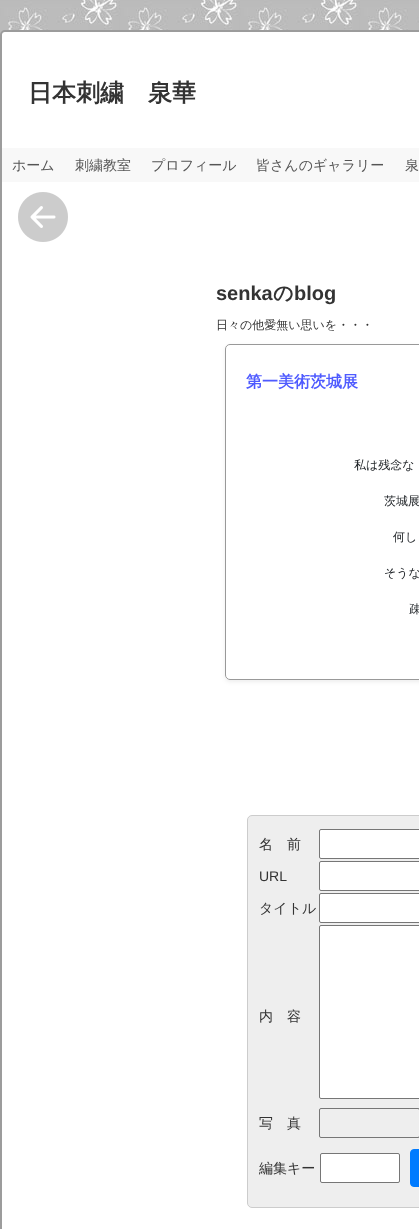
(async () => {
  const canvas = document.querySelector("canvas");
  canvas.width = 419;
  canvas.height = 1229;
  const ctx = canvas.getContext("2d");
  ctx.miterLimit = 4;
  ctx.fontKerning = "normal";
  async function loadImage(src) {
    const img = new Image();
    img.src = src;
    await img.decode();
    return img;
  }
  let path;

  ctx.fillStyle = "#ffffff";
  ctx.fillRect(0, 0, 419, 1229);
  ctx.drawImage(await loadImage("img/1.png"), 0, 0, 419, 35);
  ctx.beginPath();
  ctx.roundRect(1, 31, 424, 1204, 4);
  ctx.fill();
  ctx.strokeStyle = "#9c9c9c";
  ctx.lineWidth = 2;
  ctx.stroke();
  path = new Path2D("M7 32H419C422 32 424 34 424 37V182H2V37C2 34 4 32 7 32Z");
  ctx.fill(path);
  ctx.fillStyle = "#f8f8f8";
  ctx.fillRect(2, 148, 417, 34);
  ctx.drawImage(await loadImage("img/2.png"), 18, 192, 50, 50);
  ctx.save();
  path = new Path2D("M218 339H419V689H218ZM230 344H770C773 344 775 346 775 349V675C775 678 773 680 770 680H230C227 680 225 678 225 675V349C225 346 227 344 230 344Z");
  ctx.clip(path, "evenodd");
  ctx.fillStyle = "rgba(0, 0, 0, 0.07)";
  ctx.filter = "blur(2px)";
  ctx.beginPath();
  ctx.roundRect(225, 346, 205, 336, 5);
  ctx.fill();
  ctx.filter = "none";
  ctx.restore();
  ctx.beginPath();
  ctx.roundRect(225.5, 344.5, 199, 335, 4.5);
  ctx.strokeStyle = "#999999";
  ctx.lineWidth = 1;
  ctx.stroke();
  ctx.fillStyle = "#eeeeee";
  ctx.beginPath();
  ctx.roundRect(247.5, 815.5, 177, 392, 4.5);
  ctx.fill();
  ctx.strokeStyle = "#cccccc";
  ctx.stroke();
  ctx.fillStyle = "#ffffff";
  ctx.beginPath();
  ctx.roundRect(319.5, 829.5, 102, 29, 1.5);
  ctx.fill();
  ctx.strokeStyle = "#767676";
  ctx.stroke();
  ctx.beginPath();
  ctx.roundRect(319.5, 861.5, 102, 29, 1.5);
  ctx.fill();
  ctx.stroke();
  ctx.beginPath();
  ctx.roundRect(319.5, 893.5, 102, 29, 1.5);
  ctx.fill();
  ctx.stroke();
  ctx.beginPath();
  ctx.roundRect(319.5, 925.5, 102, 173, 1.5);
  ctx.fill();
  ctx.stroke();
  ctx.beginPath();
  ctx.roundRect(319.5, 1108.5, 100, 29, 1.5);
  ctx.stroke();
  ctx.beginPath();
  ctx.roundRect(320.5, 1153.5, 79, 29, 1.5);
  ctx.fill();
  ctx.stroke();
  ctx.fillStyle = "#007bff";
  ctx.beginPath();
  ctx.roundRect(410.5, 1149.5, 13, 37, 3.5);
  ctx.fill();
  ctx.strokeStyle = "#007bff";
  ctx.stroke();
  ctx.font = "bold 24px WenQuanYi Zen Hei";
  ctx.fillStyle = "#333333";
  ctx.fillText("日本刺繍　泉華", 28, 101);
  ctx.font = "500 14px WenQuanYi Zen Hei";
  ctx.fillStyle = "#555555";
  for (const [text, x, y] of [
    ["ホーム", 12, 170],
    ["刺繍教室", 75, 170],
    ["プロフィール", 151, 170],
    ["皆さんのギャラリー", 256, 170],
    ["泉", 405, 170],
  ]) {
    ctx.fillText(text, x, y);
  }
  ctx.font = "bold 20px Liberation Sans";
  ctx.fillStyle = "#333333";
  ctx.fillText("senka", 216, 300);
  ctx.font = "bold 20px WenQuanYi Zen Hei";
  ctx.fillText("の", 273, 300);
  ctx.font = "bold 20px Liberation Sans";
  ctx.fillText("blog", 294, 300);
  ctx.font = "500 12px WenQuanYi Zen Hei";
  ctx.fillText("日々の他愛無い思いを・・・", 216, 329);
  ctx.font = "bold 16px WenQuanYi Zen Hei";
  ctx.fillStyle = "#4f5bff";
  ctx.fillText("第一美術茨城展", 246, 387);
  ctx.font = "500 12px WenQuanYi Zen Hei";
  ctx.fillStyle = "#212529";
  for (const [text, x, y] of [
    ["私は残念な", 354, 469],
    ["茨城展", 384, 505],
    ["何し", 393, 541],
    ["そうな", 384, 577],
    ["疎", 409, 613],
  ]) {
    ctx.fillText(text, x, y);
  }
  ctx.font = "500 14px WenQuanYi Zen Hei";
  ctx.fillStyle = "#333333";
  ctx.fillText("名　前", 259, 849);
  ctx.font = "14px Liberation Sans";
  ctx.fillText("URL", 259, 881);
  ctx.font = "500 14px WenQuanYi Zen Hei";
  for (const [text, x, y] of [
    ["タイトル", 259, 913],
    ["内　容", 259, 1021],
    ["写　真", 259, 1128],
    ["編集キー", 259, 1173],
  ]) {
    ctx.fillText(text, x, y);
  }
})();
